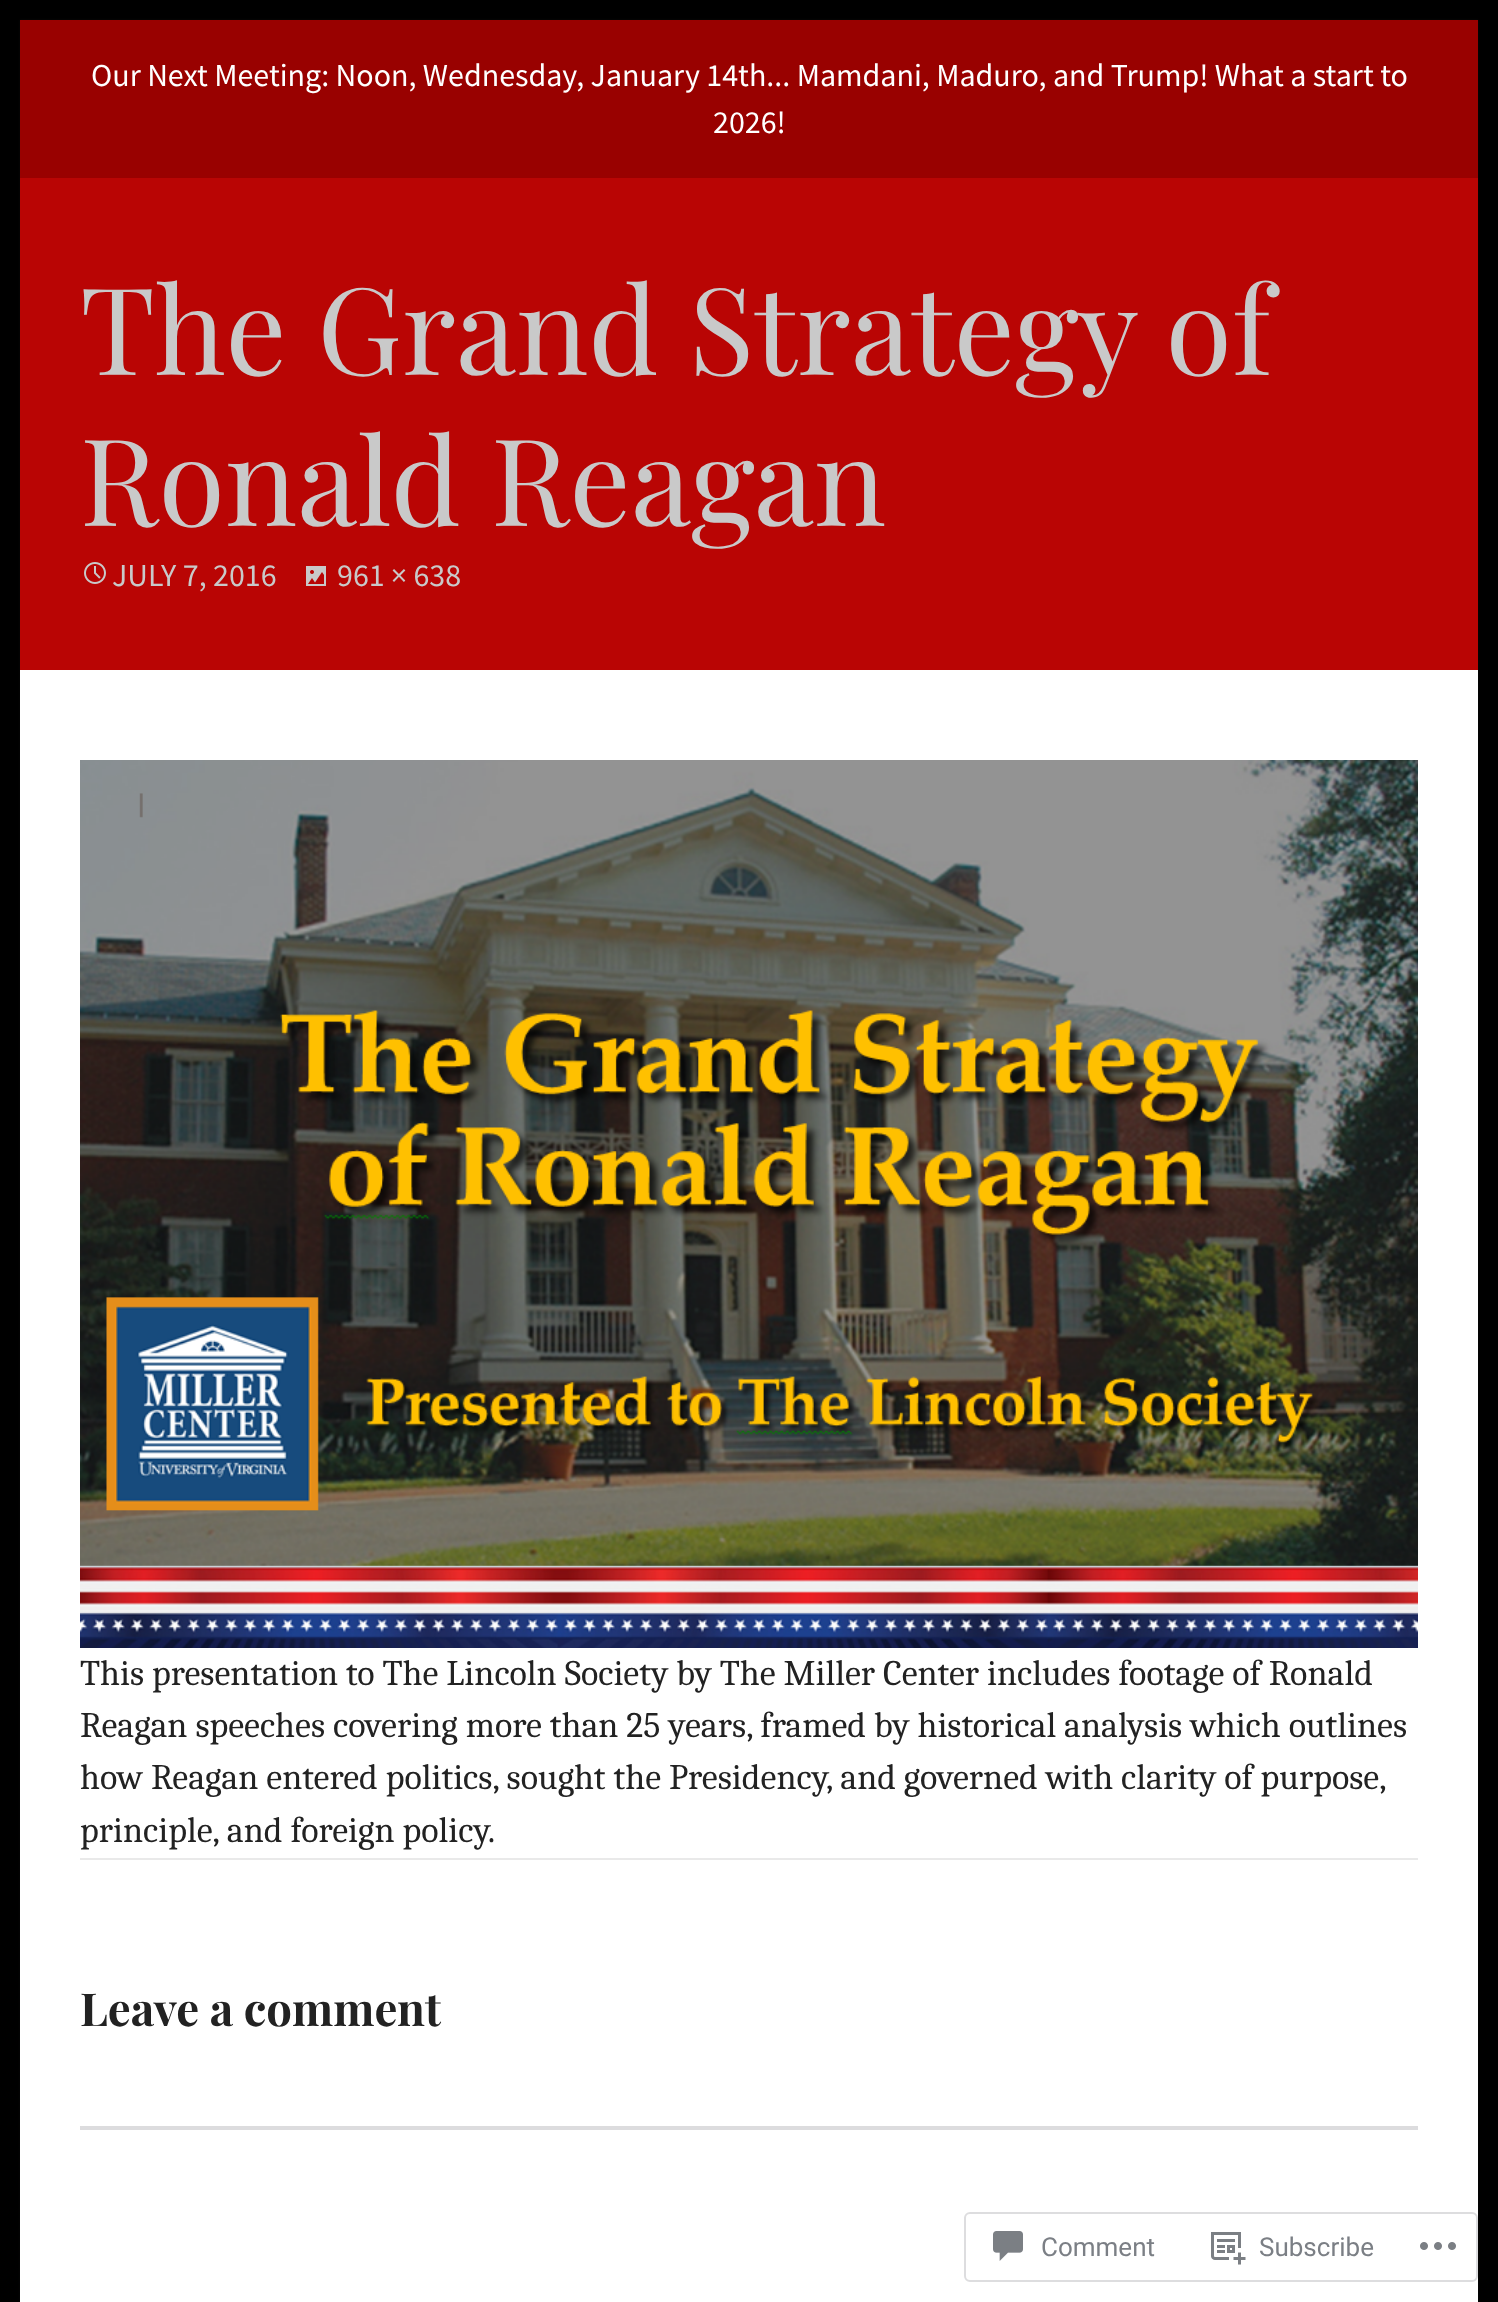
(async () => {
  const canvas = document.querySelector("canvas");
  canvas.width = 1498;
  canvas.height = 2302;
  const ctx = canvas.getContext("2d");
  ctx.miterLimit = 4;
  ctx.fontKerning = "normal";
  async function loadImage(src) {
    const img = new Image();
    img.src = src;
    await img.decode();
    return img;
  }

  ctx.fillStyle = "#000000";
  ctx.fillRect(0, 0, 1498, 2302);
  ctx.fillStyle = "rgba(34, 34, 34, 0.3)";
  ctx.filter = "blur(1px)";
  ctx.beginPath();
  ctx.rect(20, 20, 1458, 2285);
  ctx.fill();
  ctx.filter = "none";
  ctx.fillStyle = "#990100";
  ctx.fillRect(20, 20, 1458, 158);
  ctx.fillStyle = "#b90504";
  ctx.fillRect(20, 178, 1458, 492);
  ctx.drawImage(await loadImage("img/1.png"), 84, 562, 22, 22);
  ctx.drawImage(await loadImage("img/2.png"), 306, 566, 20, 20);
  ctx.fillStyle = "#ffffff";
  ctx.fillRect(20, 670, 1458, 1632);
  ctx.drawImage(await loadImage("img/3.png"), 80, 760, 1338, 888);
  ctx.fillStyle = "#e9e9e9";
  ctx.fillRect(80, 1858, 1338, 2);
  ctx.fillStyle = "#dcdcde";
  ctx.fillRect(80, 2126, 1338, 4);
  ctx.beginPath();
  ctx.roundRect(965, 2213, 512, 68, 5);
  ctx.strokeStyle = "#dddddf";
  ctx.lineWidth = 2;
  ctx.stroke();
  ctx.drawImage(await loadImage("img/4.png"), 993, 2231, 30, 30);
  ctx.drawImage(await loadImage("img/5.png"), 1211, 2232, 35, 33);
  ctx.drawImage(await loadImage("img/6.png"), 1420, 2242, 36, 8);
  ctx.font = "32px Source Sans Pro";
  ctx.fillStyle = "#ffffff";
  ctx.fillText("Our Next Meeting: Noon, Wednesday, January 14th... Mamdani, Maduro, and Trump! What a start to", 91, 86);
  ctx.fillText("2026!", 713, 133);
  ctx.font = "121px Playfair Display";
  ctx.fillStyle = "#c9c9c9";
  ctx.fillText("The Grand Strategy of", 80, 375);
  ctx.fillText("Ronald Reagan", 80, 526);
  ctx.font = "32px Source Sans Pro";
  ctx.fillText("JULY 7, 2016", 112, 586);
  ctx.fillText("961 × 638", 337, 586);
  ctx.font = "36px Caladea";
  ctx.fillStyle = "#222222";
  for (const [text, x, y] of [
    ["This presentation to The Lincoln Society by The Miller Center includes footage of Ronald", 80, 1685],
    ["Reagan speeches covering more than 25 years, framed by historical analysis which outlines", 80, 1737],
    ["how Reagan entered politics, sought the Presidency, and governed with clarity of purpose,", 80, 1789],
    ["principle, and foreign policy.", 80, 1842],
  ]) {
    ctx.fillText(text, x, y);
  }
  ctx.font = "bold 45.5px Playfair Display";
  ctx.fillText("Leave a comment", 80, 2026);
  ctx.font = "26px Roboto";
  ctx.fillStyle = "#7b7f85";
  ctx.fillText("Comment", 1041, 2256);
  ctx.fillText("Subscribe", 1259, 2256);
})();
